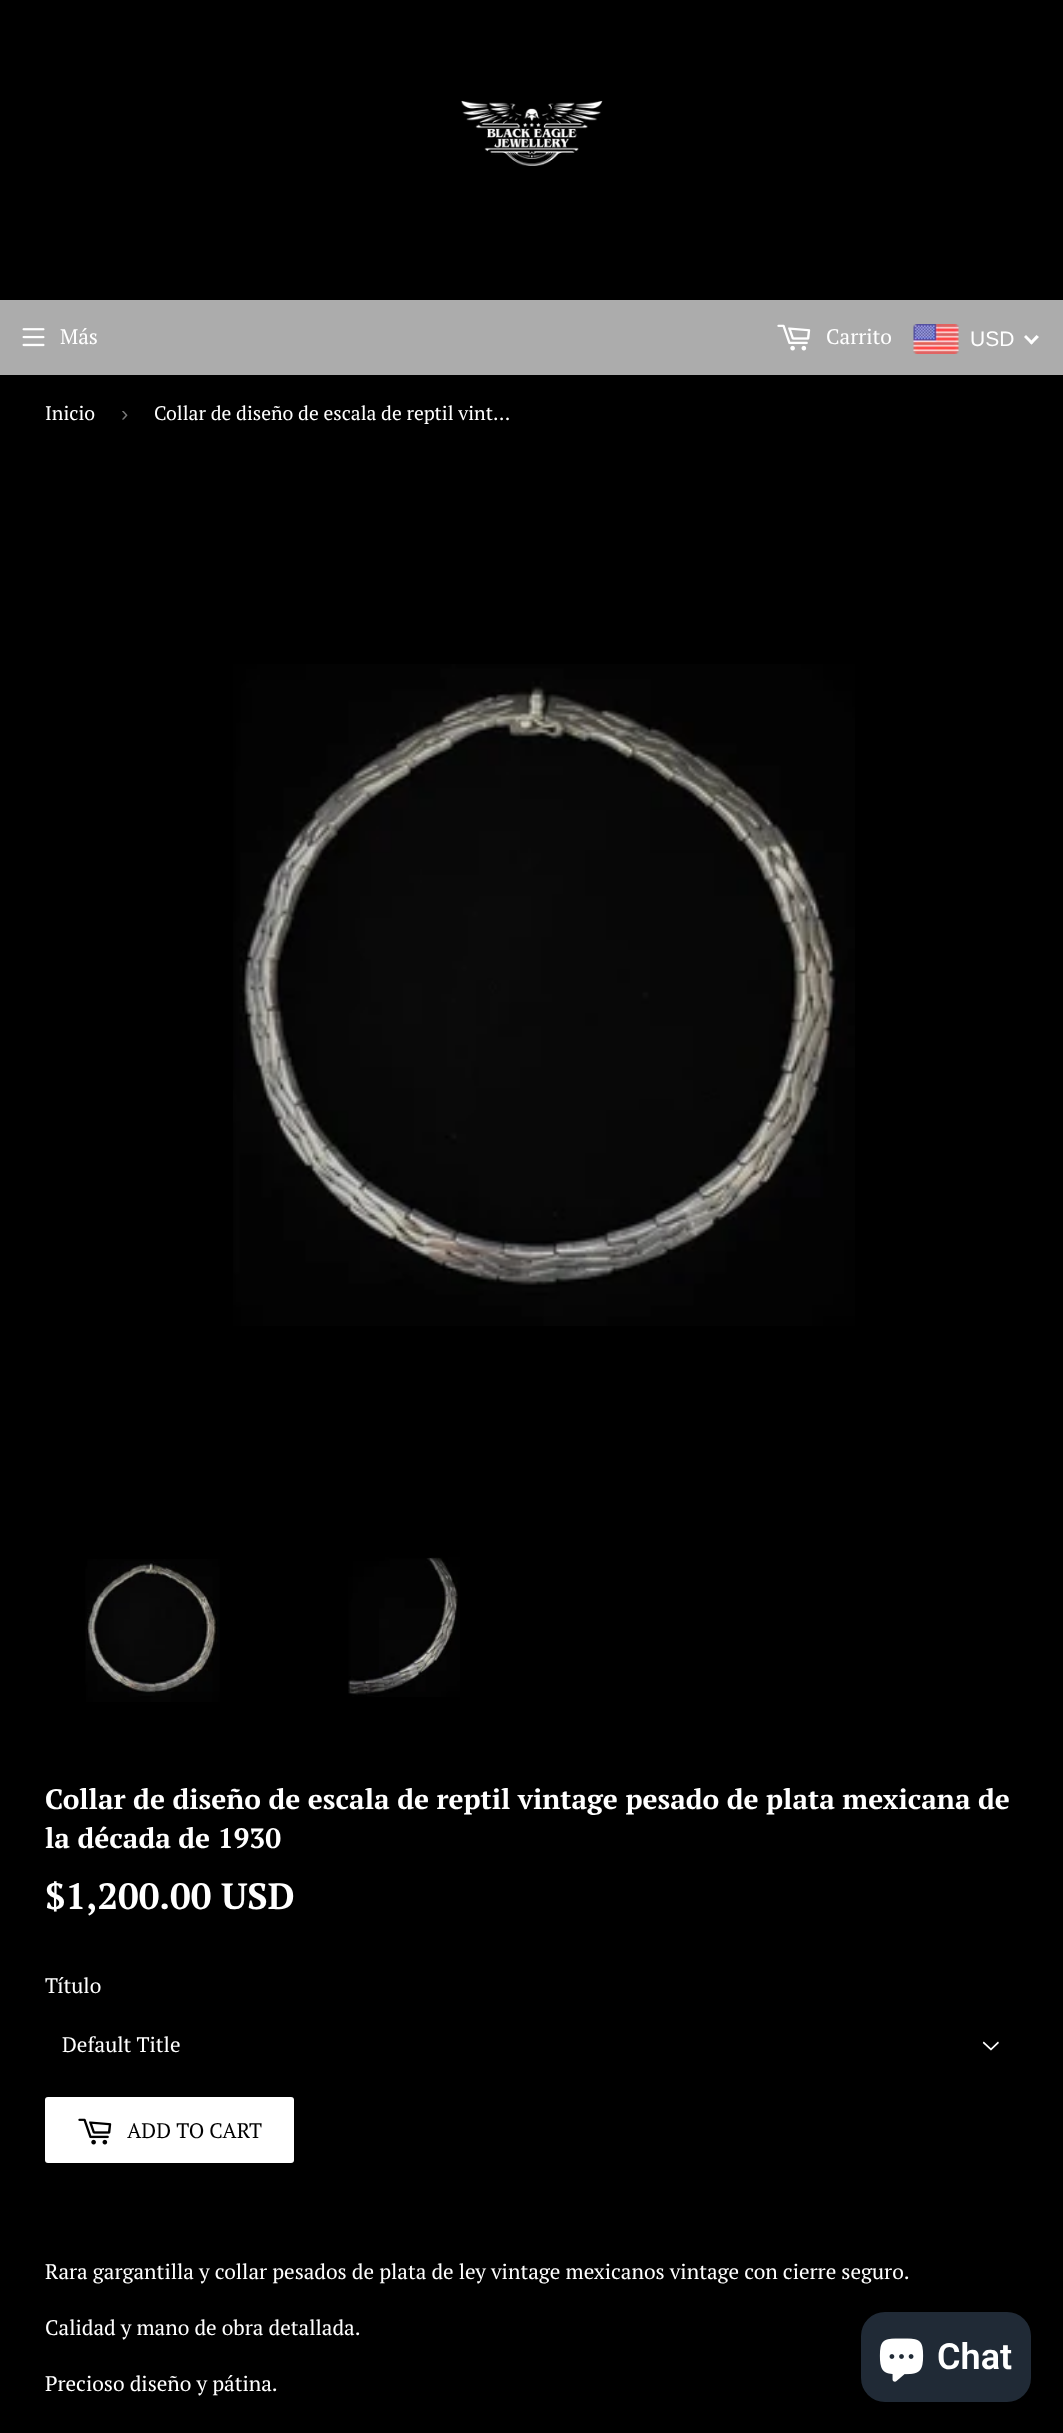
(async () => {
  const canvas = document.querySelector("canvas");
  canvas.width = 1063;
  canvas.height = 2433;
  const ctx = canvas.getContext("2d");
  ctx.miterLimit = 4;
  ctx.fontKerning = "normal";
  async function loadImage(src) {
    const img = new Image();
    img.src = src;
    await img.decode();
    return img;
  }
  let path;

  ctx.fillStyle = "#000000";
  ctx.fillRect(0, 0, 1063, 2433);
  ctx.drawImage(await loadImage("img/1.png"), 461, 100, 142, 66);
  ctx.fillStyle = "#acacac";
  ctx.fillRect(0, 300, 1063, 75);
  ctx.drawImage(await loadImage("img/2.png"), 22, 328, 23, 19);
  ctx.drawImage(await loadImage("img/3.png"), 777, 324, 34, 27);
  ctx.drawImage(await loadImage("img/4.png"), 913, 324, 46, 30);
  ctx.fillStyle = "#ffffff";
  path = new Path2D("M1036.5 335L1039 337L1031.5 344.5L1029.5 342.5Z");
  ctx.fill(path);
  path = new Path2D("M1026 335L1033.5 342.5L1031.5 344.5L1024 337Z");
  ctx.fill(path);
  ctx.drawImage(await loadImage("img/5.png"), 233, 664, 622, 662);
  ctx.drawImage(await loadImage("img/6.png"), 85, 1559, 135, 143);
  ctx.drawImage(await loadImage("img/7.png"), 348, 1557, 112, 140);
  ctx.drawImage(await loadImage("img/8.png"), 982, 2041, 17, 10);
  ctx.beginPath();
  ctx.roundRect(45, 2097, 249, 66, 3);
  ctx.fill();
  ctx.drawImage(await loadImage("img/9.png"), 78, 2118, 34, 27);
  ctx.fillStyle = "#202a36";
  ctx.beginPath();
  ctx.roundRect(861, 2312, 170, 90, 24);
  ctx.fill();
  ctx.drawImage(await loadImage("img/10.png"), 879, 2338, 45, 44);
  ctx.font = "21px PT Serif";
  ctx.fillStyle = "#ffffff";
  ctx.fillText("Más", 60, 344);
  ctx.fillText("Carrito", 826, 344);
  ctx.font = "21px Liberation Sans";
  ctx.fillText("USD", 970, 346);
  ctx.font = "19.5px PT Serif";
  ctx.fillText("Inicio", 45, 420);
  ctx.font = "22px Liberation Sans";
  ctx.fillStyle = "#767676";
  ctx.fillText("›", 121, 421);
  ctx.font = "19.5px PT Serif";
  ctx.fillStyle = "#ffffff";
  ctx.fillText("Collar de diseño de escala de reptil vint…", 154, 420);
  ctx.font = "bold 28px PT Serif";
  ctx.fillText("Collar de diseño de escala de reptil vintage pesado de plata mexicana de", 45, 1809);
  ctx.fillText("la década de 1930", 45, 1848);
  ctx.font = "bold 36.5px PT Serif";
  ctx.fillText("$1,200.00 USD", 45, 1909);
  ctx.font = "21px PT Serif";
  ctx.fillText("Título", 45, 1993);
  ctx.fillText("Default Title", 62, 2052);
  ctx.fillStyle = "#000000";
  ctx.fillText("ADD TO CART", 127, 2138);
  ctx.fillStyle = "#ffffff";
  for (const [text, x, y] of [
    ["Rara gargantilla y collar pesados de plata de ley vintage mexicanos vintage con cierre seguro.", 45, 2279],
    ["Calidad y mano de obra detallada.", 45, 2335],
    ["Precioso diseño y pátina.", 45, 2391],
  ]) {
    ctx.fillText(text, x, y);
  }
  ctx.font = "600 36px Roboto";
  ctx.fillText("Chat", 937, 2369);
})();
